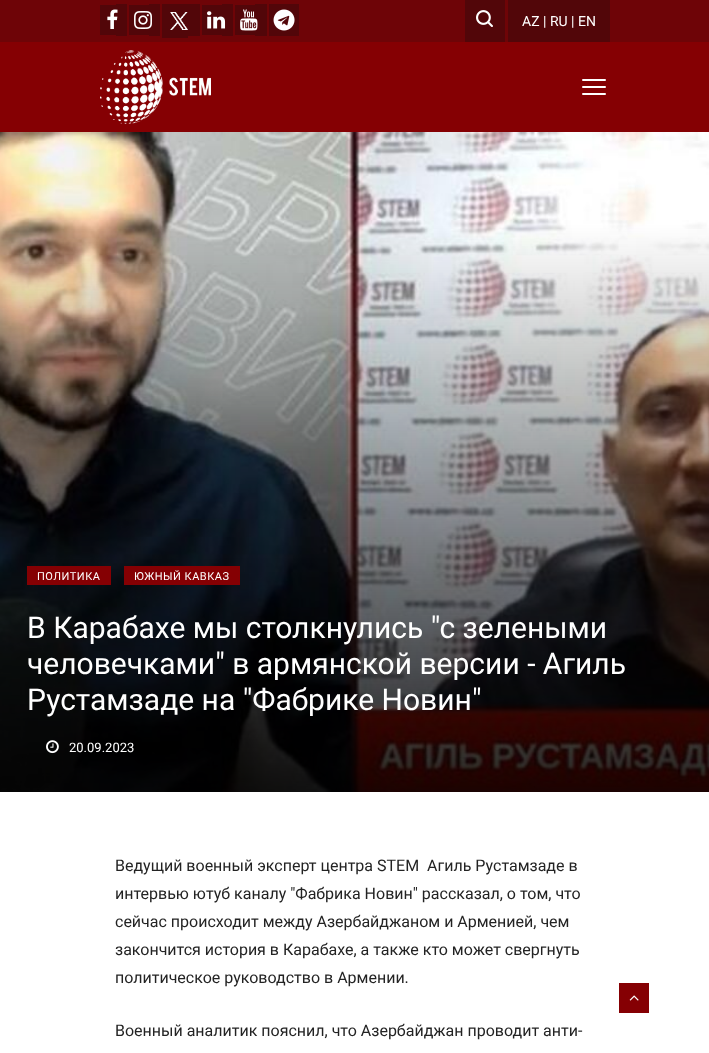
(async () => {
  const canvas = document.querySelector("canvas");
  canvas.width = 709;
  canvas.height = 1053;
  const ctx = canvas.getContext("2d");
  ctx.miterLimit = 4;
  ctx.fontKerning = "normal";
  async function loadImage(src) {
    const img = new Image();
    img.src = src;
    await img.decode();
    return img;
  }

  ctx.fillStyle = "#ffffff";
  ctx.fillRect(0, 0, 709, 1053);
  for (const [x, y, w, h, color] of [
    [0, 0, 709, 42, "#6e0407"],
    [100, 5, 16, 30, "#520609"],
    [116, 4, 11, 32, "#520609"],
  ]) {
    ctx.fillStyle = color;
    ctx.fillRect(x, y, w, h);
  }
  ctx.drawImage(await loadImage("img/1.png"), 107, 9, 11, 20);
  ctx.fillRect(129, 5, 20, 30);
  ctx.fillRect(149, 4, 11, 32);
  ctx.drawImage(await loadImage("img/2.png"), 134, 11, 18, 18);
  for (const [x, y, w, h, color] of [
    [162, 4, 26, 34, "#520609"],
    [188, 4, 12, 32, "#520609"],
    [202, 5, 20, 30, "#520609"],
    [222, 4, 11, 32, "#520609"],
  ]) {
    ctx.fillStyle = color;
    ctx.fillRect(x, y, w, h);
  }
  ctx.drawImage(await loadImage("img/3.png"), 207, 11, 19, 18);
  ctx.fillRect(235, 5, 20, 30);
  ctx.fillRect(255, 4, 12, 32);
  ctx.drawImage(await loadImage("img/4.png"), 240, 9, 18, 22);
  ctx.fillRect(269, 4, 30, 32);
  ctx.drawImage(await loadImage("img/5.png"), 273, 9, 22, 22);
  ctx.drawImage(await loadImage("img/6.png"), 170, 12, 18, 18);
  ctx.fillRect(465, 0, 40, 42);
  ctx.drawImage(await loadImage("img/7.png"), 476, 10, 17, 17);
  ctx.fillRect(508, 0, 102, 42);
  ctx.fillStyle = "#850003";
  ctx.fillRect(0, 42, 709, 90);
  ctx.drawImage(await loadImage("img/8.png"), 100, 50, 111, 74);
  ctx.fillStyle = "#ffffff";
  ctx.beginPath();
  ctx.roundRect(582, 93, 24, 2, 1);
  ctx.fill();
  ctx.beginPath();
  ctx.roundRect(582, 86, 24, 2, 1);
  ctx.fill();
  ctx.beginPath();
  ctx.roundRect(582, 79, 24, 2, 1);
  ctx.fill();
  ctx.drawImage(await loadImage("img/9.png"), 0, 132, 709, 660);
  ctx.fillStyle = "#850003";
  ctx.fillRect(27, 566, 84, 19);
  ctx.fillRect(124, 566, 116, 19);
  ctx.drawImage(await loadImage("img/10.png"), 46, 740, 13, 14);
  ctx.fillRect(619, 983, 30, 30);
  ctx.drawImage(await loadImage("img/11.png"), 629, 995, 10, 6);
  ctx.font = "14px Roboto";
  ctx.fillStyle = "#ffffff";
  ctx.fillText("AZ | RU | EN", 522, 26);
  ctx.letterSpacing = "0.5px";
  ctx.font = "11px Roboto";
  ctx.fillText("ПОЛИТИКА", 37, 580);
  ctx.fillText("ЮЖНЫЙ КАВКАЗ", 134, 580);
  ctx.letterSpacing = "0px";
  ctx.font = "30px Roboto";
  for (const [text, x, y] of [
    ["В Карабахе мы столкнулись \"с зелеными", 27, 638],
    ["человечками\" в армянской версии - Агиль", 27, 674],
    ["Рустамзаде на \"Фабрике Новин\"", 27, 710],
  ]) {
    ctx.fillText(text, x, y);
  }
  ctx.font = "13px Roboto";
  ctx.fillText("20.09.2023", 69, 752);
  ctx.font = "16px Roboto";
  ctx.fillStyle = "#232323";
  for (const [text, x, y] of [
    ["Ведущий военный эксперт центра STEM  Агиль Рустамзаде в", 115, 871],
    ["интервью ютуб каналу \"Фабрика Новин\" рассказал, о том, что", 115, 899],
    ["сейчас происходит между Азербайджаном и Арменией, чем", 115, 927],
    ["закончится история в Карабахе, а также кто может свергнуть", 115, 955],
    ["политическое руководство в Армении.", 115, 983],
    ["Военный аналитик пояснил, что Азербайджан проводит анти-", 115, 1036],
  ]) {
    ctx.fillText(text, x, y);
  }
})();
